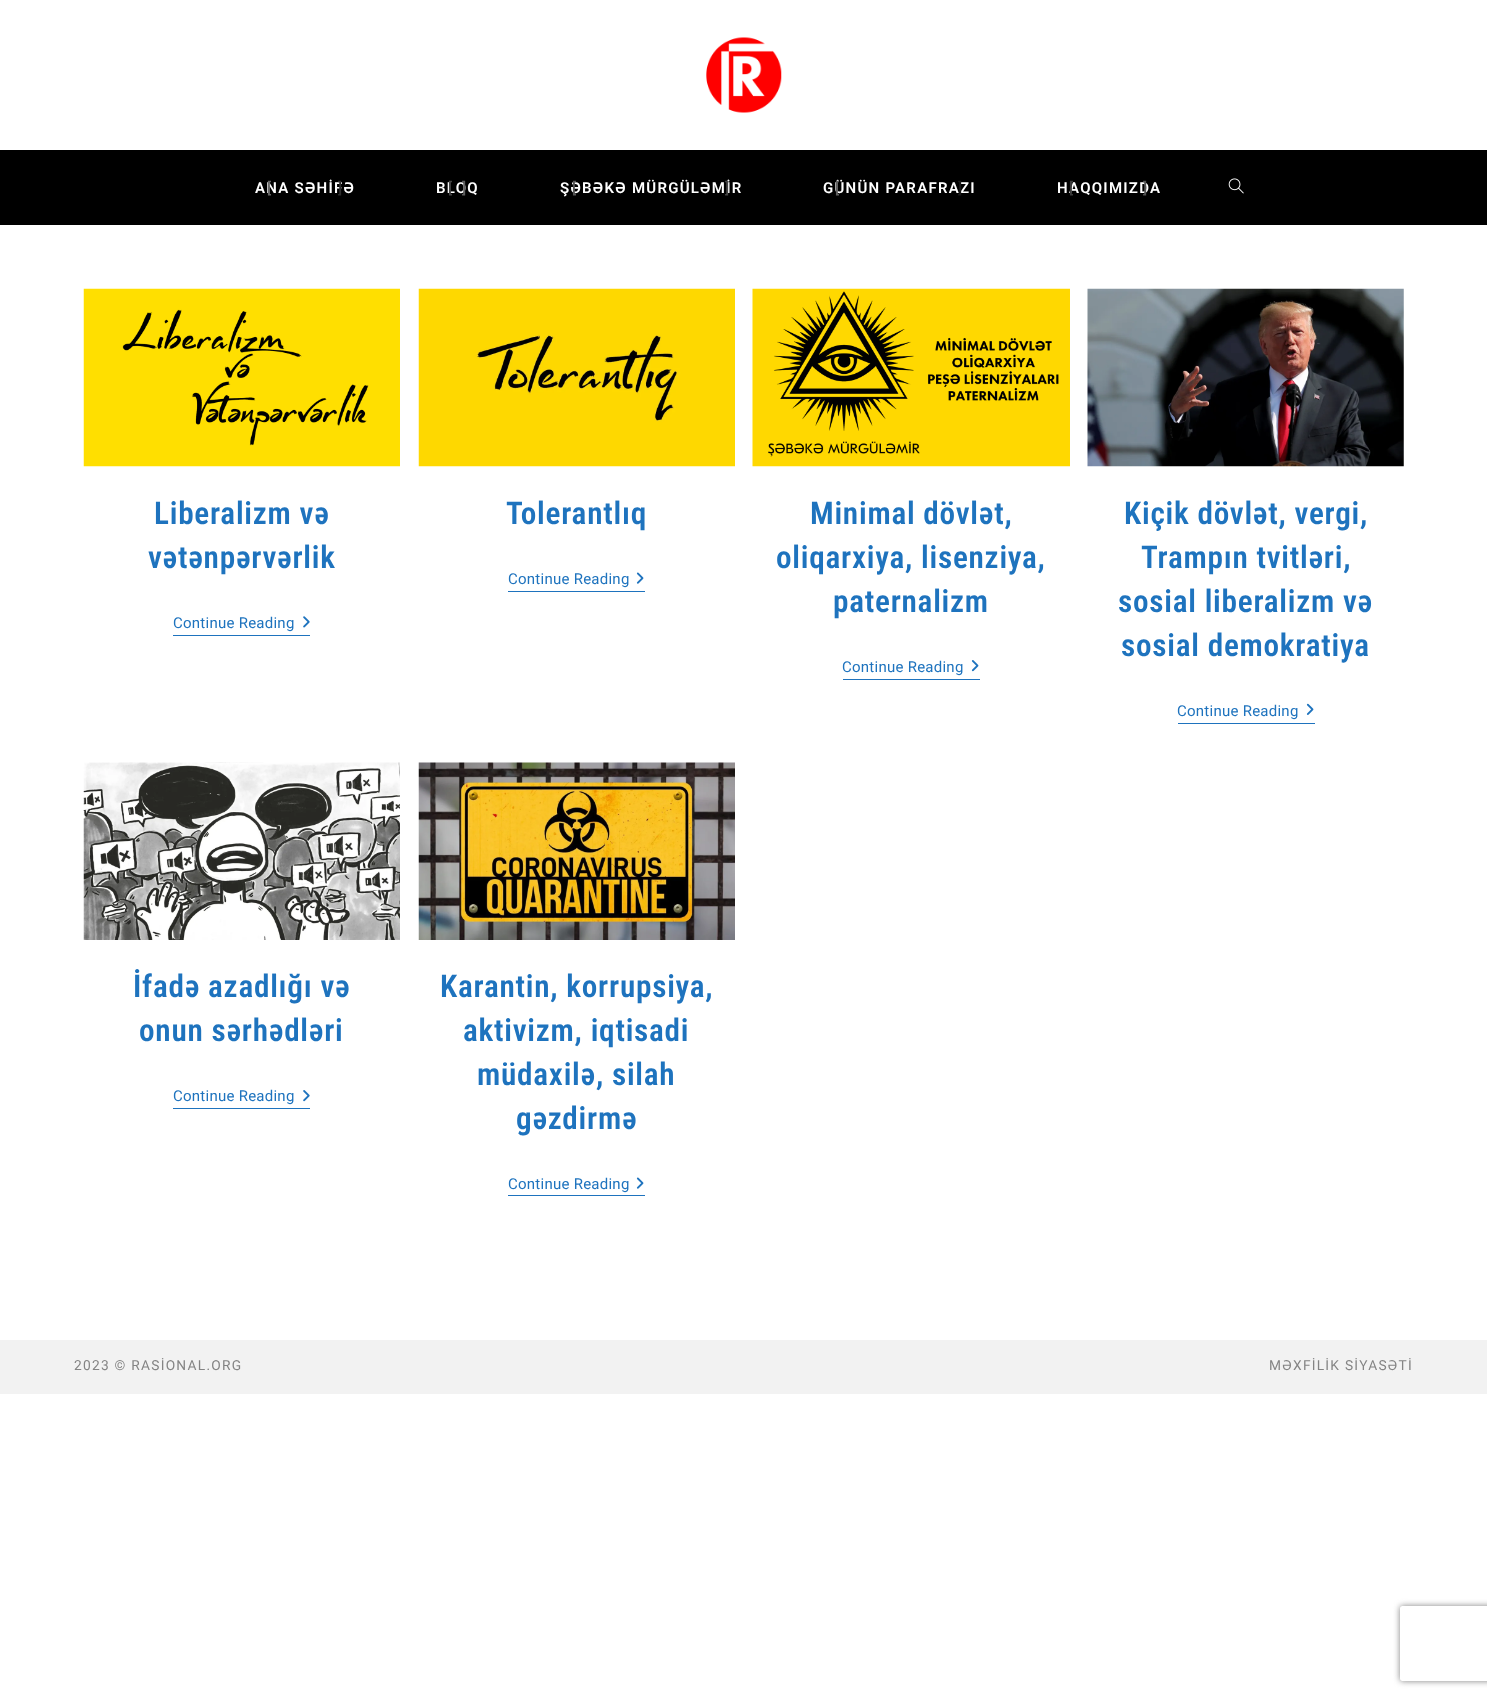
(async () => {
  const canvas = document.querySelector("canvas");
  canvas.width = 1487;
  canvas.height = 1698;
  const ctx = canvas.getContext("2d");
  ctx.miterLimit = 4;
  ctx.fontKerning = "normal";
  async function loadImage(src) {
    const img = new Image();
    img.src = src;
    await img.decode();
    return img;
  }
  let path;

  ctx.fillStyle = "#ffffff";
  ctx.fillRect(0, 0, 1487, 1698);
  ctx.drawImage(await loadImage("img/1.png"), 706, 37, 76, 76);
  ctx.fillStyle = "#000000";
  ctx.fillRect(0, 150, 1487, 75);
  ctx.drawImage(await loadImage("img/2.png"), 1228, 178, 16, 16);
  ctx.drawImage(await loadImage("img/3.png"), 83, 288, 317, 179);
  ctx.fillStyle = "#1e73be";
  ctx.fillRect(173, 635, 137, 1);
  ctx.drawImage(await loadImage("img/4.png"), 303, 616, 7, 12);
  ctx.drawImage(await loadImage("img/5.png"), 418, 288, 317, 179);
  ctx.fillRect(508, 591, 137, 1);
  ctx.drawImage(await loadImage("img/6.png"), 636, 572, 8, 12);
  ctx.drawImage(await loadImage("img/7.png"), 752, 288, 318, 179);
  ctx.fillRect(843, 679, 137, 1);
  ctx.drawImage(await loadImage("img/8.png"), 971, 660, 8, 12);
  ctx.drawImage(await loadImage("img/9.png"), 1087, 288, 317, 179);
  ctx.fillRect(1178, 723, 137, 1);
  ctx.drawImage(await loadImage("img/10.png"), 1306, 703, 8, 12);
  ctx.drawImage(await loadImage("img/11.png"), 83, 762, 317, 178);
  ctx.fillRect(173, 1108, 137, 1);
  ctx.drawImage(await loadImage("img/12.png"), 303, 1090, 7, 12);
  ctx.drawImage(await loadImage("img/13.png"), 418, 762, 317, 178);
  ctx.fillRect(508, 1195, 137, 1);
  ctx.drawImage(await loadImage("img/6.png"), 636, 1177, 8, 12);
  ctx.fillStyle = "#f2f2f2";
  ctx.fillRect(0, 1340, 1487, 54);
  ctx.save();
  path = new Path2D("M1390 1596H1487V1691H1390ZM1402.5 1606H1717.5C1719 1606 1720 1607 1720 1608.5V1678.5C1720 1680 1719 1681 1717.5 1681H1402.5C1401 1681 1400 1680 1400 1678.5V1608.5C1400 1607 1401 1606 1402.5 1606Z");
  ctx.clip(path, "evenodd");
  ctx.fillStyle = "#808080";
  ctx.filter = "blur(3px)";
  ctx.beginPath();
  ctx.roundRect(1400, 1606, 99, 75, 2.5);
  ctx.fill();
  ctx.filter = "none";
  ctx.restore();
  ctx.letterSpacing = "1.25px";
  ctx.font = "600 15px Roboto";
  ctx.fillStyle = "#ffffff";
  ctx.fillText("ANA SƏHİFƏ", 255, 193);
  ctx.fillStyle = "#686868";
  ctx.fillText("[", 267, 193);
  ctx.fillStyle = "#2e2e2e";
  ctx.fillText("]", 338, 193);
  ctx.fillStyle = "#ffffff";
  ctx.fillText("BLOQ", 436, 193);
  ctx.fillStyle = "#606060";
  ctx.fillText("]", 462, 193);
  ctx.fillStyle = "#444444";
  ctx.fillText("[", 448, 193);
  ctx.fillStyle = "#ffffff";
  ctx.fillText("ŞƏBƏKƏ MÜRGÜLƏMİR", 560, 193);
  ctx.fillStyle = "#565656";
  ctx.fillText("[", 572, 193);
  ctx.fillStyle = "#444444";
  ctx.fillText("]", 725, 193);
  ctx.fillStyle = "#ffffff";
  ctx.fillText("GÜNÜN PARAFRAZI", 823, 193);
  ctx.fillStyle = "#606060";
  ctx.fillText("[", 835, 193);
  ctx.fillStyle = "#1a1a1a";
  ctx.fillText("]", 958, 193);
  ctx.fillStyle = "#ffffff";
  ctx.fillText("HAQQIMIZDA", 1057, 193);
  ctx.fillStyle = "#565656";
  ctx.fillText("]", 1143, 193);
  ctx.fillStyle = "#3b3b3b";
  ctx.fillText("[", 1069, 193);
  ctx.letterSpacing = "0.75px";
  ctx.font = "600 31.25px Roboto Condensed";
  ctx.fillStyle = "#1e73be";
  ctx.fillText("Liberalizm və", 154, 524);
  ctx.fillText("vətənpərvərlik", 148, 568);
  ctx.letterSpacing = "0.25px";
  ctx.font = "15px Roboto";
  ctx.fillText("Continue Reading", 173, 628);
  ctx.letterSpacing = "0.75px";
  ctx.font = "600 31.25px Roboto Condensed";
  ctx.fillText("Tolerantlıq", 506, 524);
  ctx.letterSpacing = "0.25px";
  ctx.font = "15px Roboto";
  ctx.fillText("Continue Reading", 508, 584);
  ctx.letterSpacing = "0.75px";
  ctx.font = "600 31.25px Roboto Condensed";
  for (const [text, x, y] of [
    ["Minimal dövlət,", 810, 524],
    ["oliqarxiya, lisenziya,", 776, 568],
    ["paternalizm", 833, 612],
  ]) {
    ctx.fillText(text, x, y);
  }
  ctx.letterSpacing = "0.25px";
  ctx.font = "15px Roboto";
  ctx.fillText("Continue Reading", 842, 672);
  ctx.letterSpacing = "0.75px";
  ctx.font = "600 31.25px Roboto Condensed";
  for (const [text, x, y] of [
    ["Kiçik dövlət, vergi,", 1124, 524],
    ["Trampın tvitləri,", 1141, 568],
    ["sosial liberalizm və", 1118, 612],
    ["sosial demokratiya", 1121, 656],
  ]) {
    ctx.fillText(text, x, y);
  }
  ctx.letterSpacing = "0.25px";
  ctx.font = "15px Roboto";
  ctx.fillText("Continue Reading", 1177, 716);
  ctx.letterSpacing = "0.75px";
  ctx.font = "600 31.25px Roboto Condensed";
  ctx.fillText("İfadə azadlığı və", 133, 997);
  ctx.fillText("onun sərhədləri", 139, 1041);
  ctx.letterSpacing = "0.25px";
  ctx.font = "15px Roboto";
  ctx.fillText("Continue Reading", 173, 1101);
  ctx.letterSpacing = "0.75px";
  ctx.font = "600 31.25px Roboto Condensed";
  for (const [text, x, y] of [
    ["Karantin, korrupsiya,", 440, 997],
    ["aktivizm, iqtisadi", 463, 1041],
    ["müdaxilə, silah", 477, 1085],
    ["gəzdirmə", 516, 1129],
  ]) {
    ctx.fillText(text, x, y);
  }
  ctx.letterSpacing = "0.25px";
  ctx.font = "15px Roboto";
  ctx.fillText("Continue Reading", 508, 1189);
  ctx.letterSpacing = "1.25px";
  ctx.font = "13.75px Roboto";
  ctx.fillStyle = "#848484";
  ctx.fillText("2023 © RASİONAL.ORG", 74, 1370);
  ctx.fillText("MƏXFİLİK SİYASƏTİ", 1269, 1370);
})();
